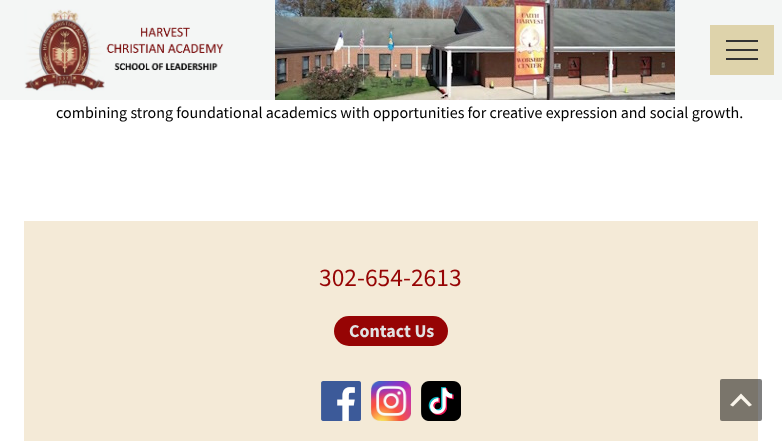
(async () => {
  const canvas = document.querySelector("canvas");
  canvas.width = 782;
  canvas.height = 441;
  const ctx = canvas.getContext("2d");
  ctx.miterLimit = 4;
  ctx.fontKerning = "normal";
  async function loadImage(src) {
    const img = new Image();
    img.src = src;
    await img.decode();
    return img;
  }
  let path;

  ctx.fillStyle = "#ffffff";
  ctx.fillRect(0, 0, 782, 441);
  ctx.fillStyle = "#f4f6f5";
  ctx.fillRect(0, 0, 782, 100);
  ctx.drawImage(await loadImage("img/1.png"), 24, 9, 200, 82);
  ctx.drawImage(await loadImage("img/2.png"), 275, 0, 400, 100);
  for (const [x, y, w, h, color] of [
    [710, 25, 64, 50, "#ded3ab"],
    [726, 49, 32, 2, "#323232"],
    [726, 40, 32, 2, "#323232"],
    [726, 58, 32, 2, "#323232"],
    [24, 221, 734, 220, "#f4ead7"],
  ]) {
    ctx.fillStyle = color;
    ctx.fillRect(x, y, w, h);
  }
  ctx.fillStyle = "#960404";
  ctx.beginPath();
  ctx.roundRect(334, 316, 114, 30, 15);
  ctx.fill();
  ctx.drawImage(await loadImage("img/3.png"), 321, 381, 40, 40);
  ctx.drawImage(await loadImage("img/4.png"), 371, 381, 40, 40);
  ctx.drawImage(await loadImage("img/5.png"), 421, 381, 40, 40);
  ctx.fillStyle = "rgba(0, 0, 0, 0.5)";
  ctx.beginPath();
  ctx.roundRect(720, 379, 42, 42, 2);
  ctx.fill();
  ctx.fillStyle = "#faf5eb";
  path = new Path2D("M749 406.5L741 398.5L733 406.5L730 405L741 393.5L752 405Z");
  ctx.fill(path);
  ctx.font = "16px Source Sans Pro";
  ctx.fillStyle = "#000000";
  ctx.fillText("combining strong foundational academics with opportunities for creative expression and social growth.", 56, 118);
  ctx.font = "25.5px Source Sans Pro";
  ctx.fillStyle = "#960404";
  ctx.fillText("302-654-2613", 319, 286);
  ctx.font = "bold 18px Source Sans Pro";
  ctx.fillStyle = "#e2e2e2";
  ctx.fillText("Contact Us", 349, 337);
})();
